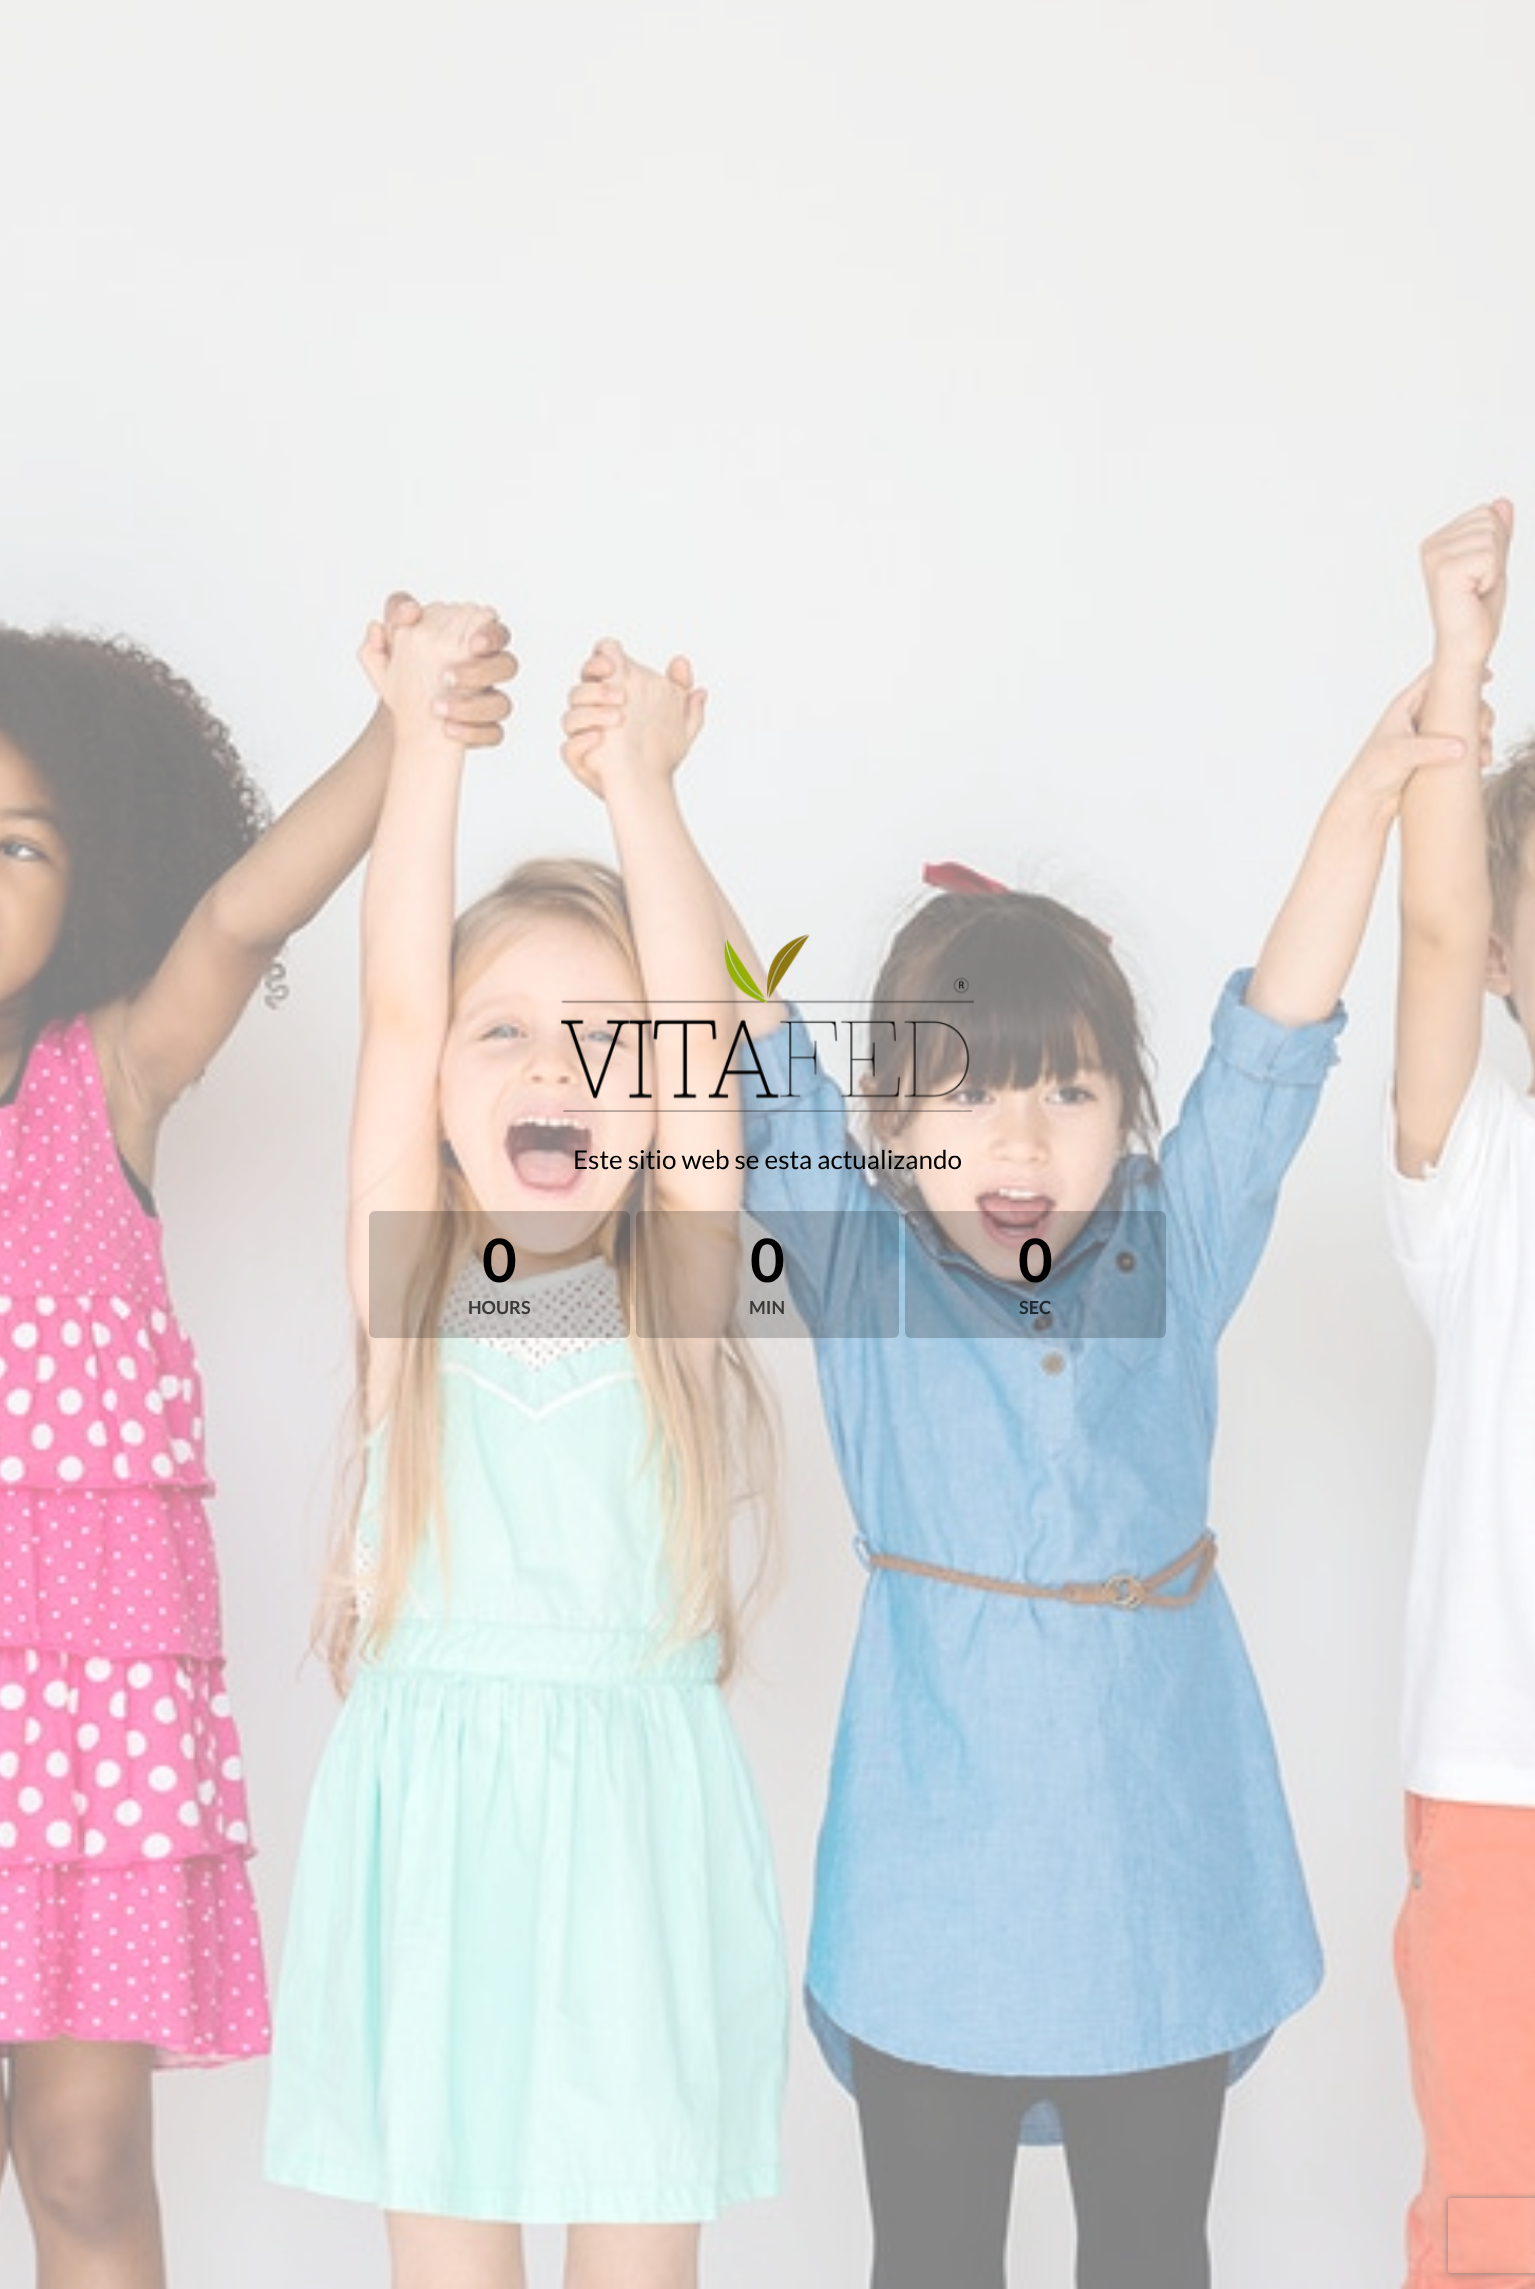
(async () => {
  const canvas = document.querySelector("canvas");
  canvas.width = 1535;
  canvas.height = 2289;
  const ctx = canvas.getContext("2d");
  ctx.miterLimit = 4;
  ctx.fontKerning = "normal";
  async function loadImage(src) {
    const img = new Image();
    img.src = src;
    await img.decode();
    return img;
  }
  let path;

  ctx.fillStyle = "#ffffff";
  ctx.fillRect(0, 0, 1535, 2289);
  ctx.drawImage(await loadImage("img/1.png"), 0, 0, 1535, 2289);
  ctx.drawImage(await loadImage("img/2.png"), 561, 934, 413, 178);
  ctx.fillStyle = "rgba(0, 0, 0, 0.2)";
  ctx.beginPath();
  ctx.roundRect(369, 1211, 261, 127, 6);
  ctx.fill();
  ctx.beginPath();
  ctx.roundRect(636, 1211, 263, 127, 6);
  ctx.fill();
  ctx.beginPath();
  ctx.roundRect(905, 1211, 261, 127, 6);
  ctx.fill();
  ctx.save();
  path = new Path2D("M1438 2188H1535V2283H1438ZM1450.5 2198H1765.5C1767 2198 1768 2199 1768 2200.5V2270.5C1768 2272 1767 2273 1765.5 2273H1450.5C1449 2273 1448 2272 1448 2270.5V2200.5C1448 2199 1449 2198 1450.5 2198Z");
  ctx.clip(path, "evenodd");
  ctx.fillStyle = "#808080";
  ctx.filter = "blur(3px)";
  ctx.beginPath();
  ctx.roundRect(1448, 2198, 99, 75, 2.5);
  ctx.fill();
  ctx.filter = "none";
  ctx.restore();
  ctx.font = "26px Lato";
  ctx.fillStyle = "#000000";
  ctx.fillText("Este sitio web se esta actualizando", 573, 1169);
  ctx.font = "bold 60px Lato";
  ctx.fillText("0", 482, 1282);
  ctx.font = "bold 18px Lato";
  ctx.fillStyle = "#3a3939";
  ctx.fillText("HOURS", 468, 1314);
  ctx.font = "bold 60px Lato";
  ctx.fillStyle = "#000000";
  ctx.fillText("0", 750, 1282);
  ctx.font = "bold 18px Lato";
  ctx.fillStyle = "#3a3939";
  ctx.fillText("MIN", 749, 1314);
  ctx.font = "bold 60px Lato";
  ctx.fillStyle = "#000000";
  ctx.fillText("0", 1018, 1282);
  ctx.font = "bold 18px Lato";
  ctx.fillStyle = "#212a30";
  ctx.fillText("SEC", 1019, 1314);
})();
